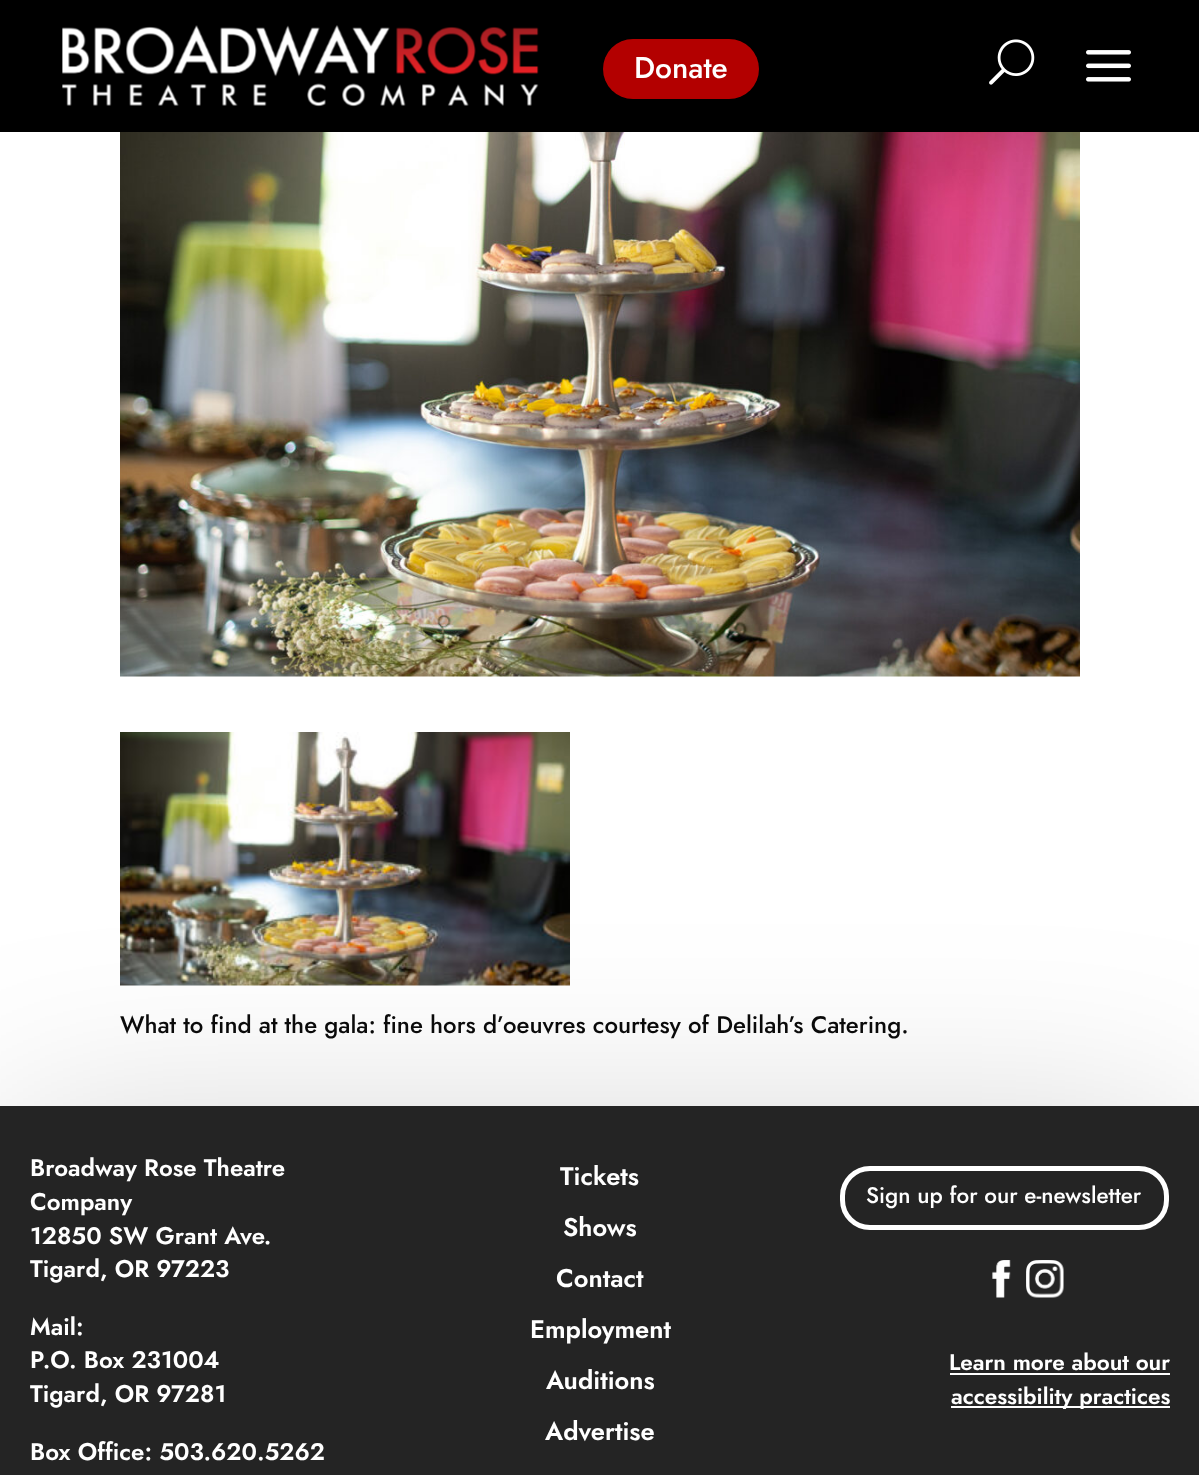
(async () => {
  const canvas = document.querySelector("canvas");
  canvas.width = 1199;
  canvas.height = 1475;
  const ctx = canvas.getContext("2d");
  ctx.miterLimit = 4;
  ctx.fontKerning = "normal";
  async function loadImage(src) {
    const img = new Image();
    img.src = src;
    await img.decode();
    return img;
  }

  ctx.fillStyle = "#ffffff";
  ctx.fillRect(0, 0, 1199, 1475);
  ctx.fillStyle = "#000000";
  ctx.fillRect(0, 0, 1199, 132);
  ctx.drawImage(await loadImage("img/1.png"), 62, 25, 477, 82);
  ctx.fillStyle = "#b30000";
  ctx.beginPath();
  ctx.roundRect(603, 39, 156, 60, 30);
  ctx.fill();
  ctx.drawImage(await loadImage("img/2.png"), 989, 39, 46, 46);
  ctx.drawImage(await loadImage("img/3.png"), 1086, 50, 45, 32);
  ctx.drawImage(await loadImage("img/4.png"), 120, 132, 960, 545);
  ctx.drawImage(await loadImage("img/5.png"), 120, 732, 450, 254);
  ctx.fillStyle = "rgba(0, 0, 0, 0.18)";
  ctx.filter = "blur(101px)";
  ctx.beginPath();
  ctx.rect(9, 1133, 1182, 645);
  ctx.fill();
  ctx.filter = "none";
  ctx.fillStyle = "#242424";
  ctx.fillRect(0, 1106, 1199, 369);
  ctx.beginPath();
  ctx.roundRect(842.5, 1168.5, 324, 59, 27.5);
  ctx.strokeStyle = "#ffffff";
  ctx.lineWidth = 5;
  ctx.stroke();
  ctx.drawImage(await loadImage("img/6.png"), 992, 1260, 19, 38);
  ctx.drawImage(await loadImage("img/7.png"), 1026, 1260, 38, 38);
  ctx.fillStyle = "#ffffff";
  ctx.fillRect(950, 1373, 220, 2);
  ctx.fillRect(951, 1406, 219, 2);
  ctx.font = "500 30px Jost";
  ctx.fillText("Donate", 634, 78);
  ctx.font = "500 24px Jost";
  ctx.fillStyle = "#0a0a0a";
  ctx.fillText("What to find at the gala: fine hors d’oeuvres courtesy of Delilah’s Catering.", 120, 1033);
  ctx.font = "600 24px Jost";
  ctx.fillStyle = "#ffffff";
  for (const [text, x, y] of [
    ["Broadway Rose Theatre", 30, 1176],
    ["Company", 30, 1210],
    ["12850 SW Grant Ave.", 30, 1244],
    ["Tigard, OR 97223", 30, 1277],
    ["Mail:", 30, 1335],
    ["P.O. Box 231004", 30, 1368],
    ["Tigard, OR 97281", 30, 1402],
    ["Box Office: 503.620.5262", 30, 1460],
  ]) {
    ctx.fillText(text, x, y);
  }
  ctx.font = "600 25.5px Jost";
  for (const [text, x, y] of [
    ["Tickets", 560, 1185],
    ["Shows", 563, 1236],
    ["Contact", 556, 1287],
    ["Employment", 530, 1338],
    ["Auditions", 546, 1389],
    ["Advertise", 545, 1440],
  ]) {
    ctx.fillText(text, x, y);
  }
  ctx.font = "500 22.5px Jost";
  ctx.fillText("Sign up for our e-newsletter", 866, 1203);
  ctx.font = "600 22.5px Jost";
  ctx.fillText("Learn more about our", 949, 1370);
  ctx.fillText("accessibility practices", 951, 1404);
})();
